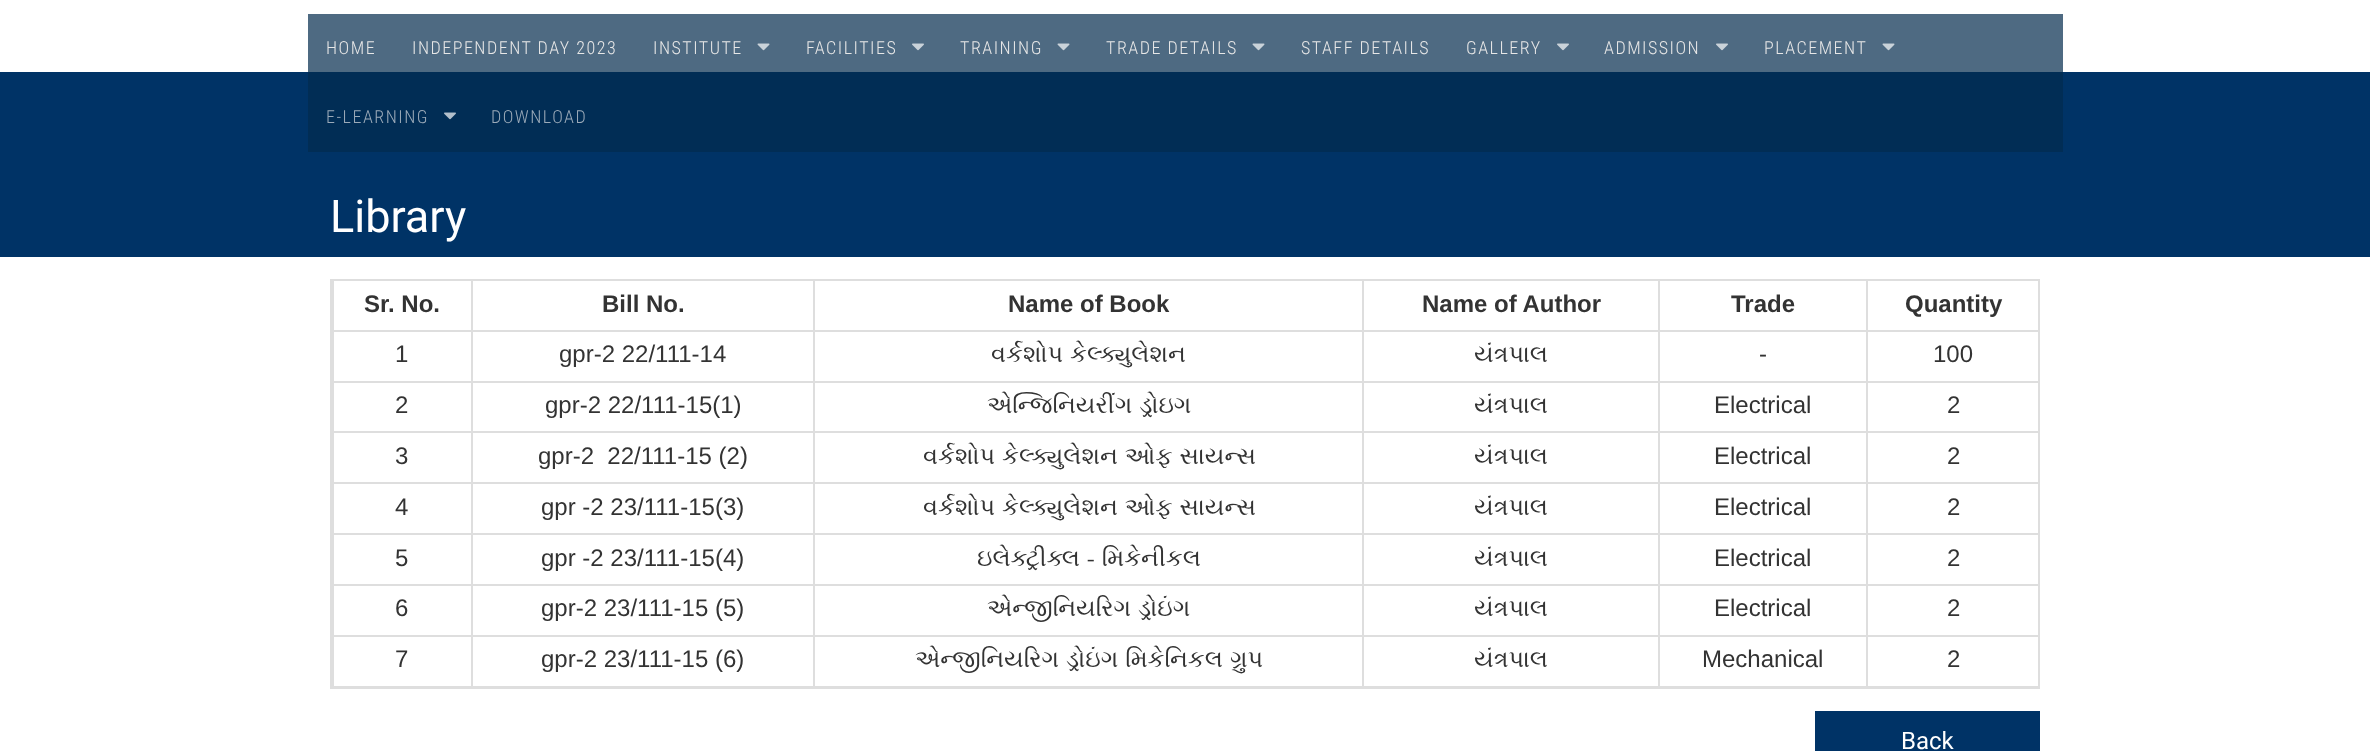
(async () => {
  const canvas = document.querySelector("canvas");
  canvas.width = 2370;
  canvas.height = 751;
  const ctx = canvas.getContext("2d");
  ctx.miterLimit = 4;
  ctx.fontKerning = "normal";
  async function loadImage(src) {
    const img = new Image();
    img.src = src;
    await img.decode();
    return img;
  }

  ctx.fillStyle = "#ffffff";
  ctx.fillRect(0, 0, 2370, 751);
  ctx.fillStyle = "#4e6a82";
  ctx.fillRect(308, 14, 1755, 58);
  ctx.drawImage(await loadImage("img/1.png"), 757, 43, 13, 8);
  ctx.drawImage(await loadImage("img/2.png"), 912, 43, 12, 8);
  ctx.drawImage(await loadImage("img/1.png"), 1057, 43, 13, 8);
  ctx.drawImage(await loadImage("img/1.png"), 1252, 43, 13, 8);
  ctx.drawImage(await loadImage("img/2.png"), 1557, 43, 12, 8);
  ctx.drawImage(await loadImage("img/2.png"), 1716, 43, 12, 8);
  ctx.drawImage(await loadImage("img/1.png"), 1882, 43, 13, 8);
  ctx.fillStyle = "#003366";
  ctx.fillRect(0, 72, 2370, 185);
  ctx.fillStyle = "#012d55";
  ctx.fillRect(308, 72, 1755, 80);
  ctx.drawImage(await loadImage("img/3.png"), 444, 112, 12, 8);
  ctx.strokeStyle = "#dedede";
  ctx.lineWidth = 2;
  ctx.strokeRect(331, 280, 1708, 408);
  for (const [x, y, w, h, color] of [
    [332, 330, 1707, 2, "#dedede"],
    [332, 281, 2, 51, "#dedede"],
    [471, 281, 2, 51, "#dedede"],
    [813, 281, 2, 51, "#dedede"],
    [1362, 281, 2, 51, "#dedede"],
    [1658, 281, 2, 51, "#dedede"],
    [1866, 281, 2, 51, "#dedede"],
    [332, 381, 1707, 2, "#dedede"],
    [332, 332, 2, 51, "#dedede"],
    [471, 332, 2, 51, "#dedede"],
    [813, 332, 2, 51, "#dedede"],
    [1362, 332, 2, 51, "#dedede"],
    [1658, 332, 2, 51, "#dedede"],
    [1866, 332, 2, 51, "#dedede"],
    [332, 431, 1707, 2, "#dedede"],
    [332, 383, 2, 49, "#dedede"],
    [471, 383, 2, 49, "#dedede"],
    [813, 383, 2, 49, "#dedede"],
    [1362, 383, 2, 49, "#dedede"],
    [1658, 383, 2, 49, "#dedede"],
    [1866, 383, 2, 49, "#dedede"],
    [332, 482, 1707, 2, "#dedede"],
    [332, 432, 2, 51, "#dedede"],
    [471, 432, 2, 51, "#dedede"],
    [813, 432, 2, 51, "#dedede"],
    [1362, 432, 2, 51, "#dedede"],
    [1658, 432, 2, 51, "#dedede"],
    [1866, 432, 2, 51, "#dedede"],
    [332, 533, 1707, 2, "#dedede"],
    [332, 483, 2, 51, "#dedede"],
    [471, 483, 2, 51, "#dedede"],
    [813, 483, 2, 51, "#dedede"],
    [1362, 483, 2, 51, "#dedede"],
    [1658, 483, 2, 51, "#dedede"],
    [1866, 483, 2, 51, "#dedede"],
    [332, 584, 1707, 2, "#dedede"],
    [332, 534, 2, 51, "#dedede"],
    [471, 534, 2, 51, "#dedede"],
    [813, 534, 2, 51, "#dedede"],
    [1362, 534, 2, 51, "#dedede"],
    [1658, 534, 2, 51, "#dedede"],
    [1866, 534, 2, 51, "#dedede"],
    [332, 635, 1707, 2, "#dedede"],
    [332, 585, 2, 51, "#dedede"],
    [471, 585, 2, 51, "#dedede"],
    [813, 585, 2, 51, "#dedede"],
    [1362, 585, 2, 51, "#dedede"],
    [1658, 585, 2, 51, "#dedede"],
    [1866, 585, 2, 51, "#dedede"],
    [332, 686, 1707, 1, "#dedede"],
    [332, 636, 2, 51, "#dedede"],
    [471, 636, 2, 51, "#dedede"],
    [813, 636, 2, 51, "#dedede"],
    [1362, 636, 2, 51, "#dedede"],
    [1658, 636, 2, 51, "#dedede"],
    [1866, 636, 2, 51, "#dedede"],
    [1815, 711, 225, 40, "#003366"],
  ]) {
    ctx.fillStyle = color;
    ctx.fillRect(x, y, w, h);
  }
  ctx.letterSpacing = "1.5px";
  ctx.font = "300 18px Roboto Condensed";
  ctx.fillStyle = "#e7e7e7";
  for (const [text, x, y] of [
    ["HOME", 326, 54],
    ["INDEPENDENT DAY 2023", 412, 54],
    ["INSTITUTE", 653, 54],
    ["FACILITIES", 806, 54],
    ["TRAINING", 960, 54],
    ["TRADE DETAILS", 1106, 54],
    ["STAFF DETAILS", 1301, 54],
    ["GALLERY", 1466, 54],
    ["ADMISSION", 1604, 54],
    ["PLACEMENT", 1764, 54],
  ]) {
    ctx.fillText(text, x, y);
  }
  ctx.fillStyle = "#9baab9";
  ctx.fillText("E-LEARNING", 326, 123);
  ctx.fillText("DOWNLOAD", 491, 123);
  ctx.letterSpacing = "0px";
  ctx.font = "45px Roboto";
  ctx.fillStyle = "#ffffff";
  ctx.fillText("Library", 330, 232);
  ctx.font = "bold 24px Liberation Sans";
  ctx.fillStyle = "#333333";
  for (const [text, x, y] of [
    ["Sr. No.", 364, 312],
    ["Bill No.", 602, 312],
    ["Name of Book", 1008, 312],
    ["Name of Author", 1422, 312],
    ["Trade", 1731, 312],
    ["Quantity", 1905, 312],
  ]) {
    ctx.fillText(text, x, y);
  }
  ctx.font = "24px Liberation Sans";
  ctx.fillText("1", 395, 362);
  ctx.fillText("gpr-2 22/111-14", 559, 362);
  ctx.wordSpacing = "1px";
  ctx.font = "24px FreeSerif";
  ctx.fillText("વર્કશોપ કેલ્ક્યુલેશન", 991, 362);
  ctx.wordSpacing = "0px";
  ctx.fillText("યંત્રપાલ", 1474, 362);
  ctx.font = "24px Liberation Sans";
  for (const [text, x, y] of [
    ["-", 1759, 362],
    ["100", 1933, 362],
    ["2", 395, 413],
    ["gpr-2 22/111-15(1)", 545, 413],
  ]) {
    ctx.fillText(text, x, y);
  }
  ctx.wordSpacing = "1px";
  ctx.font = "24px FreeSerif";
  ctx.fillText("એન્જિનિયરીંગ ડ્રોઇગ", 987, 413);
  ctx.wordSpacing = "0px";
  ctx.fillText("યંત્રપાલ", 1474, 413);
  ctx.font = "24px Liberation Sans";
  for (const [text, x, y] of [
    ["Electrical", 1714, 413],
    ["2", 1947, 413],
    ["3", 395, 464],
    ["gpr-2  22/111-15 (2)", 538, 464],
  ]) {
    ctx.fillText(text, x, y);
  }
  ctx.wordSpacing = "1px";
  ctx.font = "24px FreeSerif";
  ctx.fillText("વર્કશોપ કેલ્ક્યુલેશન ઓફ સાયન્સ", 923, 464);
  ctx.wordSpacing = "0px";
  ctx.fillText("યંત્રપાલ", 1474, 464);
  ctx.font = "24px Liberation Sans";
  for (const [text, x, y] of [
    ["Electrical", 1714, 464],
    ["2", 1947, 464],
    ["4", 395, 515],
    ["gpr -2 23/111-15(3)", 541, 515],
  ]) {
    ctx.fillText(text, x, y);
  }
  ctx.wordSpacing = "1px";
  ctx.font = "24px FreeSerif";
  ctx.fillText("વર્કશોપ કેલ્ક્યુલેશન ઓફ સાયન્સ", 923, 515);
  ctx.wordSpacing = "0px";
  ctx.fillText("યંત્રપાલ", 1474, 515);
  ctx.font = "24px Liberation Sans";
  for (const [text, x, y] of [
    ["Electrical", 1714, 515],
    ["2", 1947, 515],
    ["5", 395, 566],
    ["gpr -2 23/111-15(4)", 541, 566],
  ]) {
    ctx.fillText(text, x, y);
  }
  ctx.wordSpacing = "1px";
  ctx.font = "24px FreeSerif";
  ctx.fillText("ઇલેક્ટ્રીક્લ - મિકેનીકલ", 977, 566);
  ctx.wordSpacing = "0px";
  ctx.fillText("યંત્રપાલ", 1474, 566);
  ctx.font = "24px Liberation Sans";
  for (const [text, x, y] of [
    ["Electrical", 1714, 566],
    ["2", 1947, 566],
    ["6", 395, 616],
    ["gpr-2 23/111-15 (5)", 541, 616],
  ]) {
    ctx.fillText(text, x, y);
  }
  ctx.wordSpacing = "1px";
  ctx.font = "24px FreeSerif";
  ctx.fillText("એન્જીનિયરિગ ડ્રોઇંગ", 987, 616);
  ctx.wordSpacing = "0px";
  ctx.fillText("યંત્રપાલ", 1474, 616);
  ctx.font = "24px Liberation Sans";
  for (const [text, x, y] of [
    ["Electrical", 1714, 616],
    ["2", 1947, 616],
    ["7", 395, 667],
    ["gpr-2 23/111-15 (6)", 541, 667],
  ]) {
    ctx.fillText(text, x, y);
  }
  ctx.wordSpacing = "1px";
  ctx.font = "24px FreeSerif";
  ctx.fillText("એન્જીનિયરિગ ડ્રોઇંગ મિકેનિકલ ગ્રુપ", 915, 667);
  ctx.wordSpacing = "0px";
  ctx.fillText("યંત્રપાલ", 1474, 667);
  ctx.font = "24px Liberation Sans";
  ctx.fillText("Mechanical", 1702, 667);
  ctx.fillText("2", 1947, 667);
  ctx.font = "24px Roboto";
  ctx.fillStyle = "#ffffff";
  ctx.fillText("Back", 1901, 749);
})();
